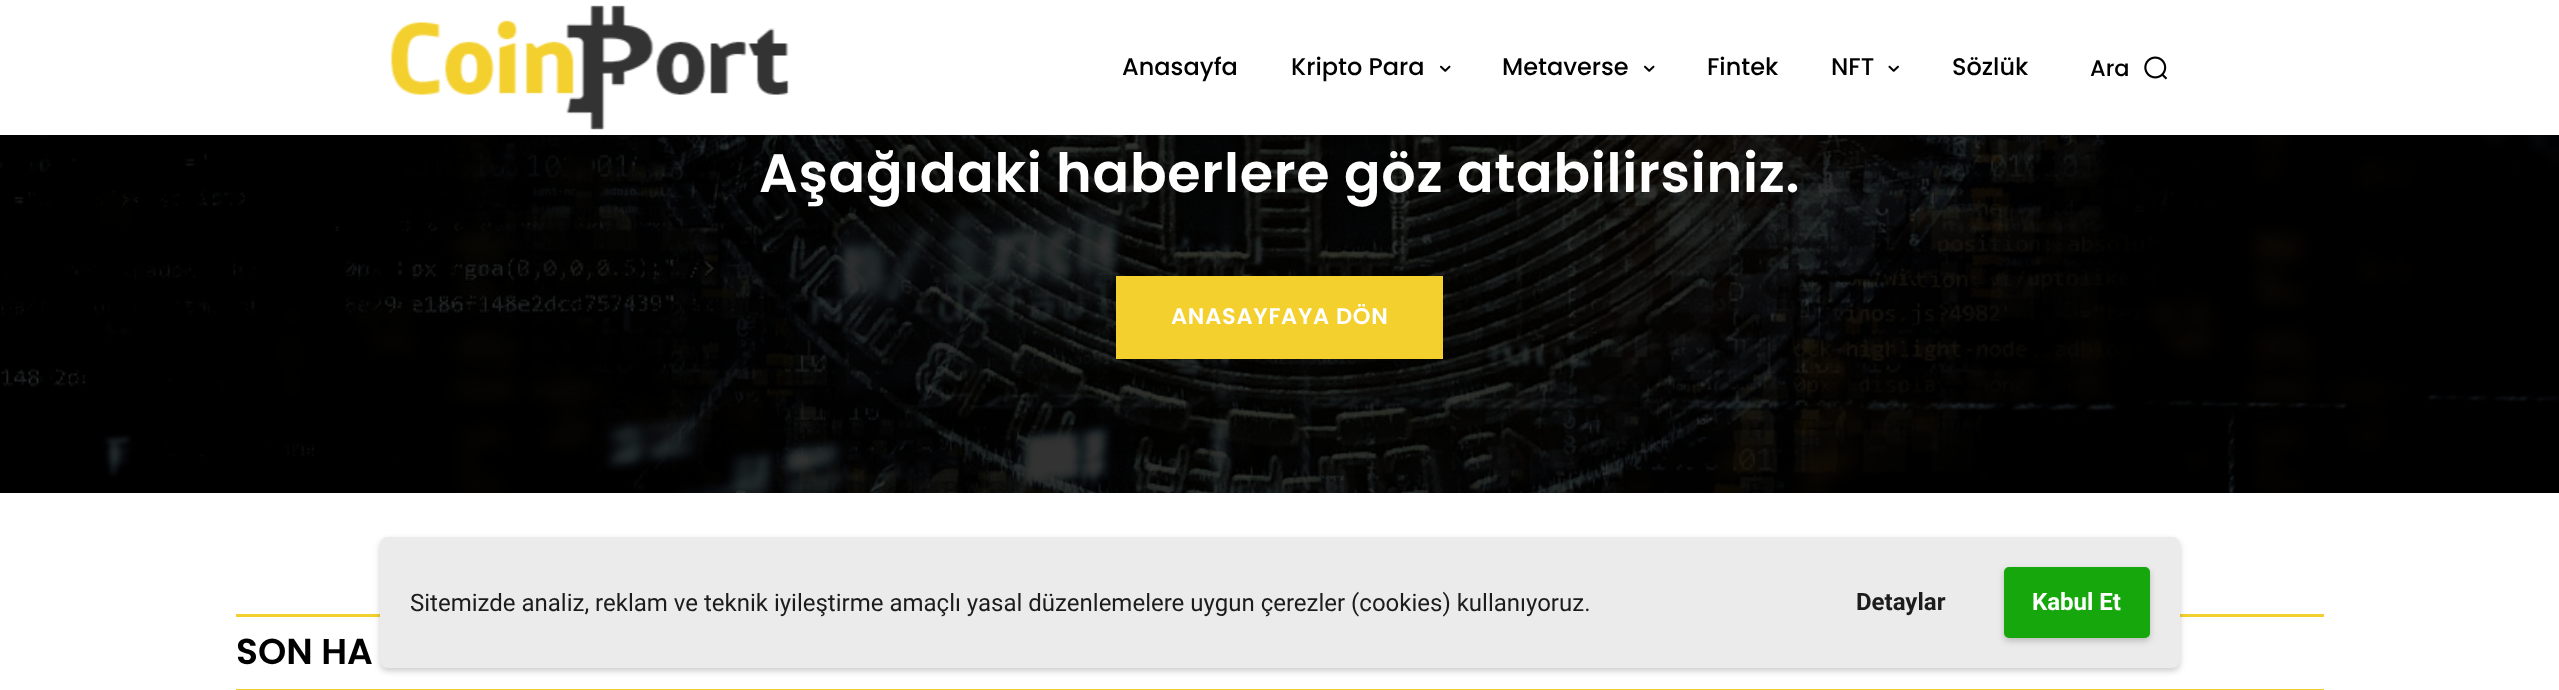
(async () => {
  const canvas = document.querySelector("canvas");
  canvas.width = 2559;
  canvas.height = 690;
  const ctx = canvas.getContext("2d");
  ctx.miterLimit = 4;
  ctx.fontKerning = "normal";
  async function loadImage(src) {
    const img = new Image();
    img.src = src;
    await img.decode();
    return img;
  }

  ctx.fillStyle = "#ffffff";
  ctx.fillRect(0, 0, 2559, 690);
  ctx.drawImage(await loadImage("img/1.png"), 390, 5, 399, 125);
  ctx.drawImage(await loadImage("img/2.png"), 1440, 65, 11, 7);
  ctx.drawImage(await loadImage("img/2.png"), 1644, 65, 11, 7);
  ctx.drawImage(await loadImage("img/3.png"), 1888, 65, 11, 7);
  ctx.drawImage(await loadImage("img/4.png"), 2144, 56, 24, 24);
  ctx.drawImage(await loadImage("img/5.png"), 0, 135, 2559, 358);
  for (const [x, y, w, h, color] of [
    [1116, 276, 327, 83, "#f3d02e"],
    [236, 614, 2088, 3, "#f3d02e"],
    [236, 689, 2088, 1, "#f3d02e"],
  ]) {
    ctx.fillStyle = color;
    ctx.fillRect(x, y, w, h);
  }
  ctx.fillStyle = "rgba(0, 0, 0, 0.2)";
  ctx.filter = "blur(3px)";
  ctx.beginPath();
  ctx.roundRect(380, 540, 1800, 131, 8);
  ctx.fill();
  ctx.filter = "none";
  ctx.fillStyle = "#ebebeb";
  ctx.beginPath();
  ctx.roundRect(380, 537, 1800, 131, 8);
  ctx.fill();
  ctx.fillStyle = "rgba(0, 0, 0, 0.2)";
  ctx.filter = "blur(3px)";
  ctx.beginPath();
  ctx.roundRect(2004, 570, 146, 71, 5);
  ctx.fill();
  ctx.filter = "none";
  ctx.fillStyle = "#16a70c";
  ctx.beginPath();
  ctx.roundRect(2005, 568, 144, 69, 4);
  ctx.fill();
  ctx.strokeStyle = "#16a70c";
  ctx.lineWidth = 2;
  ctx.stroke();
  ctx.font = "500 24px Poppins";
  ctx.fillStyle = "#000000";
  for (const [text, x, y] of [
    ["Anasayfa", 1122, 75],
    ["Kripto Para", 1291, 75],
    ["Metaverse", 1502, 75],
    ["Fintek", 1707, 75],
    ["NFT", 1831, 75],
    ["Sözlük", 1952, 75],
  ]) {
    ctx.fillText(text, x, y);
  }
  ctx.font = "500 22.5px Poppins";
  ctx.fillText("Ara", 2090, 76);
  ctx.letterSpacing = "0.75px";
  ctx.font = "600 54px Poppins";
  ctx.fillStyle = "#ffffff";
  ctx.fillText("Aşağıdaki haberlere göz atabilirsiniz.", 759, 192);
  ctx.font = "600 22.5px Poppins";
  ctx.fillText("ANASAYFAYA DÖN", 1171, 324);
  ctx.letterSpacing = "0px";
  ctx.font = "600 36px Poppins";
  ctx.fillStyle = "#000000";
  ctx.fillText("SON HA", 236, 664);
  ctx.font = "24px Roboto";
  ctx.fillStyle = "#1c1c1c";
  ctx.fillText("Sitemizde analiz, reklam ve teknik iyileştirme amaçlı yasal düzenlemelere uygun çerezler (cookies) kullanıyoruz.", 410, 611);
  ctx.font = "bold 24px Roboto";
  ctx.fillText("Detaylar", 1856, 610);
  ctx.fillStyle = "#ffffff";
  ctx.fillText("Kabul Et", 2032, 610);
})();
